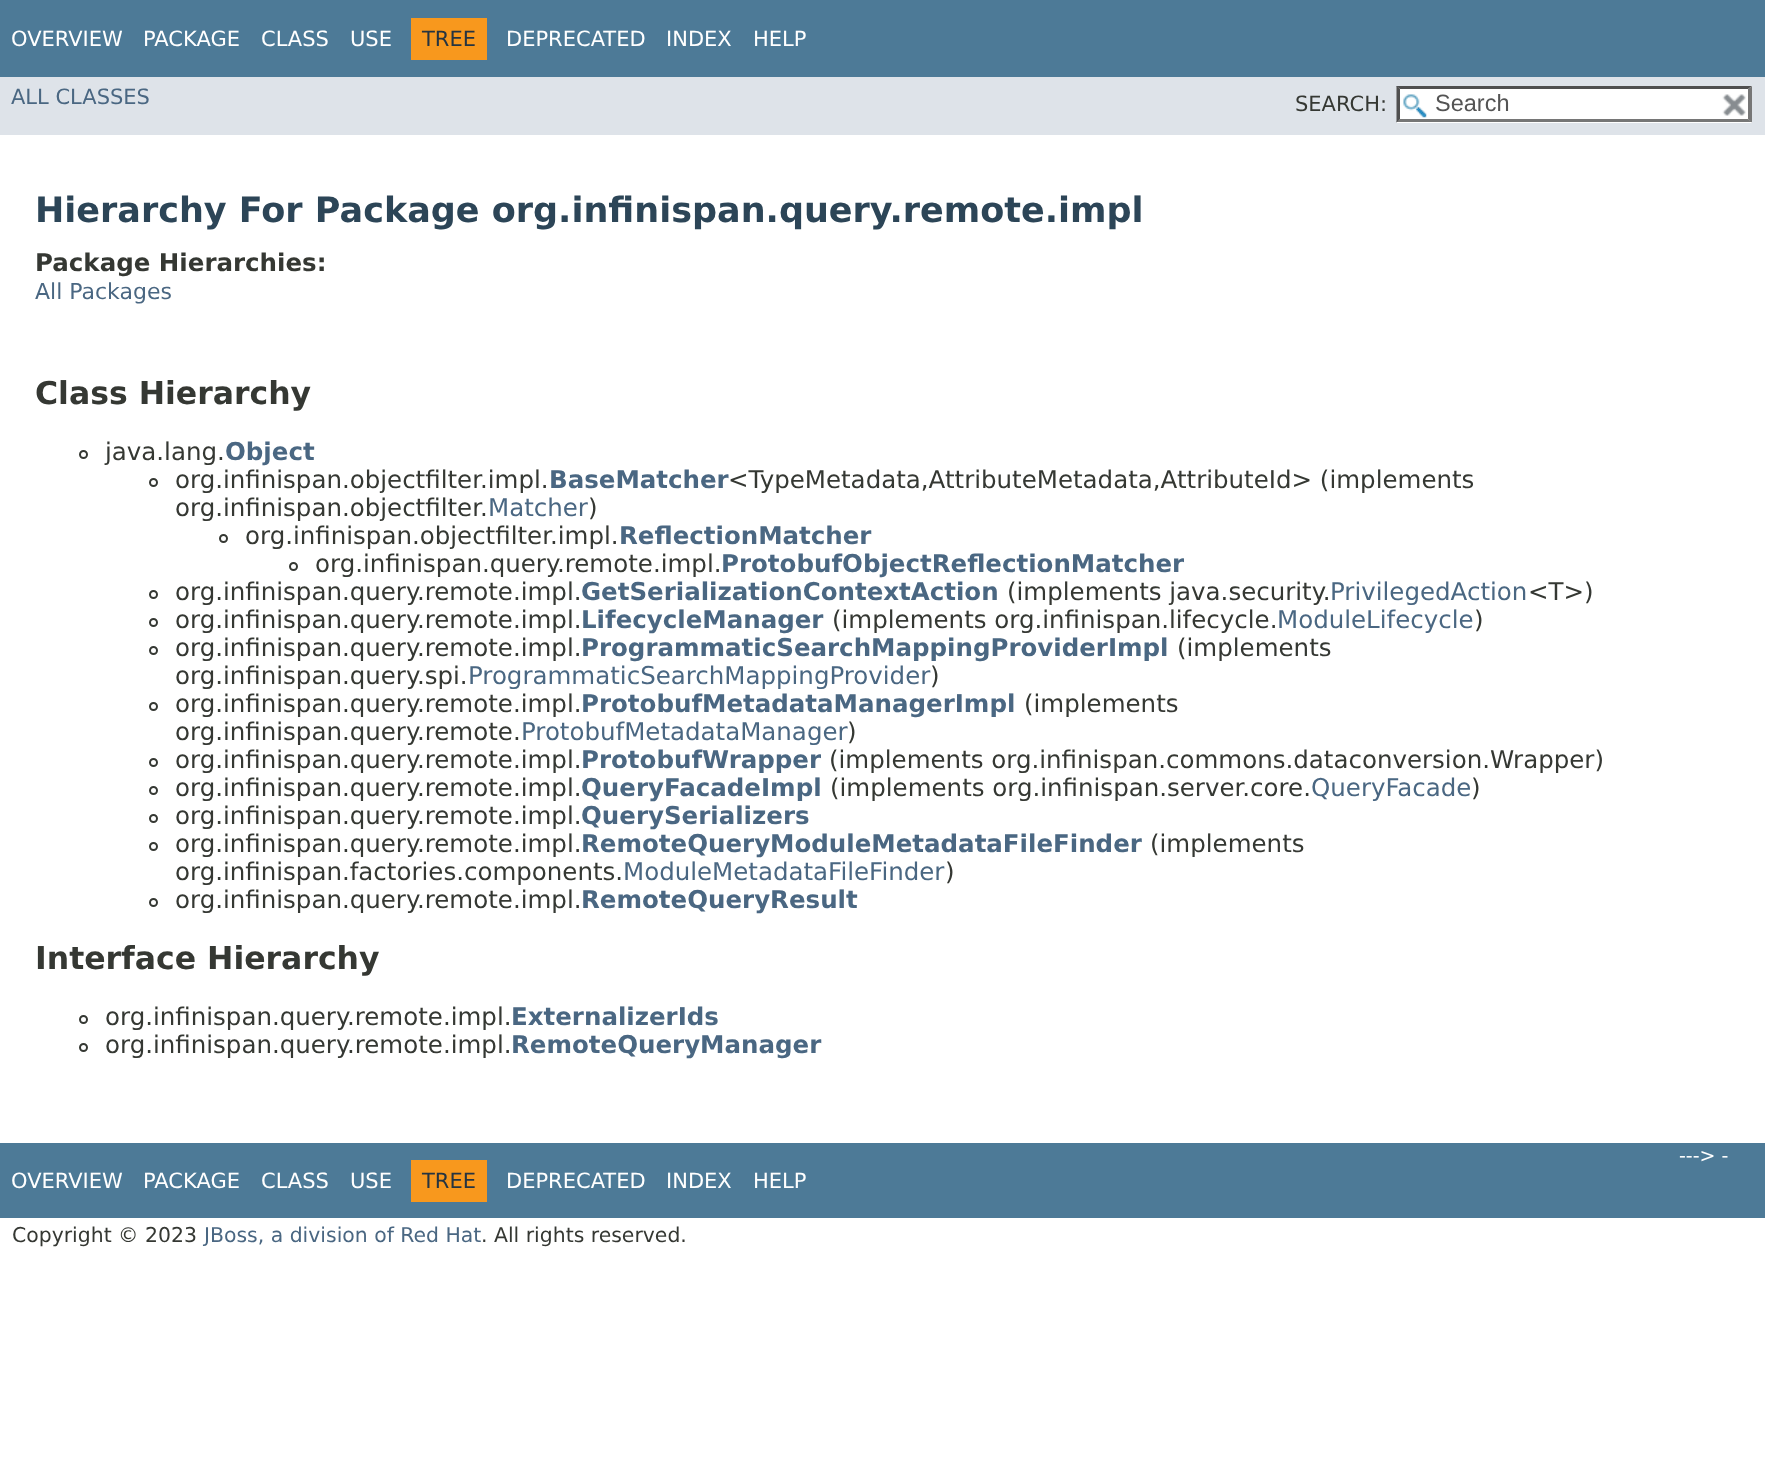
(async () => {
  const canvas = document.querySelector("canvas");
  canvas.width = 1765;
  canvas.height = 1463;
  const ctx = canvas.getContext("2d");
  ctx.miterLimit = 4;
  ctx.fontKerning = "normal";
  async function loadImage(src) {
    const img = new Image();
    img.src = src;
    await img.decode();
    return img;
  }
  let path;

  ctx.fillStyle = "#ffffff";
  ctx.fillRect(0, 0, 1765, 1463);
  for (const [x, y, w, h, color] of [
    [0, 0, 1765, 77, "#4d7a97"],
    [411, 18, 76, 42, "#f8981d"],
    [0, 77, 1765, 58, "#dee3e9"],
    [1397, 86, 355, 37, "#ffffff"],
  ]) {
    ctx.fillStyle = color;
    ctx.fillRect(x, y, w, h);
  }
  ctx.drawImage(await loadImage("img/1.png"), 1403, 94, 24, 24);
  ctx.fillStyle = "#4f4f4f";
  path = new Path2D("M1396 86H1752L1748 89H1400Z");
  ctx.fill(path);
  ctx.fillStyle = "#767676";
  path = new Path2D("M1752 86V122.5L1748 119V89Z");
  ctx.fill(path);
  path = new Path2D("M1752 122H1396L1400 119H1748Z");
  ctx.fill(path);
  ctx.fillStyle = "#4f4f4f";
  path = new Path2D("M1396.5 122.5V86L1400 89V119Z");
  ctx.fill(path);
  ctx.drawImage(await loadImage("img/2.png"), 1722, 94, 24, 22);
  ctx.beginPath();
  ctx.arc(83.5, 454.5, 3.5, 0, Math.PI * 2);
  ctx.strokeStyle = "#353833";
  ctx.lineWidth = 2;
  ctx.stroke();
  ctx.beginPath();
  ctx.arc(153.5, 482.5, 3.5, 0, Math.PI * 2);
  ctx.stroke();
  ctx.beginPath();
  ctx.arc(223.5, 538.5, 3.5, 0, Math.PI * 2);
  ctx.stroke();
  ctx.beginPath();
  ctx.arc(293.5, 566.5, 3.5, 0, Math.PI * 2);
  ctx.stroke();
  ctx.beginPath();
  ctx.arc(153.5, 594.5, 3.5, 0, Math.PI * 2);
  ctx.stroke();
  ctx.beginPath();
  ctx.arc(153.5, 622.5, 3.5, 0, Math.PI * 2);
  ctx.stroke();
  ctx.beginPath();
  ctx.arc(153.5, 650.5, 3.5, 0, Math.PI * 2);
  ctx.stroke();
  ctx.beginPath();
  ctx.arc(153.5, 706.5, 3.5, 0, Math.PI * 2);
  ctx.stroke();
  ctx.beginPath();
  ctx.arc(153.5, 762.5, 3.5, 0, Math.PI * 2);
  ctx.stroke();
  ctx.beginPath();
  ctx.arc(153.5, 790.5, 3.5, 0, Math.PI * 2);
  ctx.stroke();
  ctx.beginPath();
  ctx.arc(153.5, 818.5, 3.5, 0, Math.PI * 2);
  ctx.stroke();
  ctx.beginPath();
  ctx.arc(153.5, 846.5, 3.5, 0, Math.PI * 2);
  ctx.stroke();
  ctx.beginPath();
  ctx.arc(153.5, 902.5, 3.5, 0, Math.PI * 2);
  ctx.stroke();
  ctx.beginPath();
  ctx.arc(83.5, 1019.5, 3.5, 0, Math.PI * 2);
  ctx.stroke();
  ctx.beginPath();
  ctx.arc(83.5, 1047.5, 3.5, 0, Math.PI * 2);
  ctx.stroke();
  ctx.fillStyle = "#4d7a97";
  ctx.fillRect(0, 1143, 1765, 75);
  ctx.fillStyle = "#f8981d";
  ctx.fillRect(411, 1160, 76, 42);
  ctx.font = "21px DejaVu Sans";
  ctx.fillStyle = "#ffffff";
  for (const [text, x, y] of [
    ["OVERVIEW", 11, 46],
    ["PACKAGE", 143, 46],
    ["CLASS", 261, 46],
    ["USE", 350, 46],
  ]) {
    ctx.fillText(text, x, y);
  }
  ctx.fillStyle = "#253441";
  ctx.fillText("TREE", 422, 46);
  ctx.fillStyle = "#ffffff";
  for (const [text, x, y] of [
    ["DEPRECATED", 506, 46],
    ["INDEX", 666, 46],
    ["HELP", 753, 46],
  ]) {
    ctx.fillText(text, x, y);
  }
  ctx.fillStyle = "#4a6782";
  ctx.fillText("ALL CLASSES", 11, 104);
  ctx.fillStyle = "#353833";
  ctx.fillText("SEARCH:", 1295, 111);
  ctx.font = "23.5px Liberation Sans";
  ctx.fillStyle = "#545454";
  ctx.fillText("Search", 1435, 111);
  ctx.font = "bold 35px DejaVu Sans";
  ctx.fillStyle = "#2c4557";
  ctx.fillText("Hierarchy For Package org.infinispan.query.remote.impl", 35, 222);
  ctx.font = "bold 24.5px DejaVu Sans";
  ctx.fillStyle = "#353833";
  ctx.fillText("Package Hierarchies:", 35, 271);
  ctx.font = "22px DejaVu Sans";
  ctx.fillStyle = "#4a6782";
  ctx.fillText("All Packages", 35, 299);
  ctx.font = "bold 31.5px DejaVu Sans";
  ctx.fillStyle = "#353833";
  ctx.fillText("Class Hierarchy", 35, 404);
  ctx.font = "24.5px DejaVu Sans";
  ctx.fillText("java.lang.", 105, 460);
  ctx.font = "bold 24.5px DejaVu Sans";
  ctx.fillStyle = "#4a6782";
  ctx.fillText("Object", 225, 460);
  ctx.font = "24.5px DejaVu Sans";
  ctx.fillStyle = "#353833";
  ctx.fillText("org.infinispan.objectfilter.impl.", 175, 488);
  ctx.font = "bold 24.5px DejaVu Sans";
  ctx.fillStyle = "#4a6782";
  ctx.fillText("BaseMatcher", 549, 488);
  ctx.font = "24.5px DejaVu Sans";
  ctx.fillStyle = "#353833";
  ctx.fillText("<TypeMetadata,AttributeMetadata,AttributeId> (implements", 728, 488);
  ctx.fillText("org.infinispan.objectfilter.", 175, 516);
  ctx.fillStyle = "#4a6782";
  ctx.fillText("Matcher", 488, 516);
  ctx.fillStyle = "#353833";
  ctx.fillText(")", 588, 516);
  ctx.fillText("org.infinispan.objectfilter.impl.", 245, 544);
  ctx.font = "bold 24.5px DejaVu Sans";
  ctx.fillStyle = "#4a6782";
  ctx.fillText("ReflectionMatcher", 619, 544);
  ctx.font = "24.5px DejaVu Sans";
  ctx.fillStyle = "#353833";
  ctx.fillText("org.infinispan.query.remote.impl.", 315, 572);
  ctx.font = "bold 24.5px DejaVu Sans";
  ctx.fillStyle = "#4a6782";
  ctx.fillText("ProtobufObjectReflectionMatcher", 721, 572);
  ctx.font = "24.5px DejaVu Sans";
  ctx.fillStyle = "#353833";
  ctx.fillText("org.infinispan.query.remote.impl.", 175, 600);
  ctx.font = "bold 24.5px DejaVu Sans";
  ctx.fillStyle = "#4a6782";
  ctx.fillText("GetSerializationContextAction", 581, 600);
  ctx.font = "24.5px DejaVu Sans";
  ctx.fillStyle = "#353833";
  ctx.fillText("(implements java.security.", 1007, 600);
  ctx.fillStyle = "#4a6782";
  ctx.fillText("PrivilegedAction", 1330, 600);
  ctx.fillStyle = "#353833";
  ctx.fillText("<T>)", 1528, 600);
  ctx.fillText("org.infinispan.query.remote.impl.", 175, 628);
  ctx.font = "bold 24.5px DejaVu Sans";
  ctx.fillStyle = "#4a6782";
  ctx.fillText("LifecycleManager", 581, 628);
  ctx.font = "24.5px DejaVu Sans";
  ctx.fillStyle = "#353833";
  ctx.fillText("(implements org.infinispan.lifecycle.", 832, 628);
  ctx.fillStyle = "#4a6782";
  ctx.fillText("ModuleLifecycle", 1277, 628);
  ctx.fillStyle = "#353833";
  ctx.fillText(")", 1474, 628);
  ctx.fillText("org.infinispan.query.remote.impl.", 175, 656);
  ctx.font = "bold 24.5px DejaVu Sans";
  ctx.fillStyle = "#4a6782";
  ctx.fillText("ProgrammaticSearchMappingProviderImpl", 581, 656);
  ctx.font = "24.5px DejaVu Sans";
  ctx.fillStyle = "#353833";
  ctx.fillText("(implements", 1177, 656);
  ctx.fillText("org.infinispan.query.spi.", 175, 684);
  ctx.fillStyle = "#4a6782";
  ctx.fillText("ProgrammaticSearchMappingProvider", 468, 684);
  ctx.fillStyle = "#353833";
  ctx.fillText(")", 930, 684);
  ctx.fillText("org.infinispan.query.remote.impl.", 175, 712);
  ctx.font = "bold 24.5px DejaVu Sans";
  ctx.fillStyle = "#4a6782";
  ctx.fillText("ProtobufMetadataManagerImpl", 581, 712);
  ctx.font = "24.5px DejaVu Sans";
  ctx.fillStyle = "#353833";
  ctx.fillText("(implements", 1024, 712);
  ctx.fillText("org.infinispan.query.remote.", 175, 740);
  ctx.fillStyle = "#4a6782";
  ctx.fillText("ProtobufMetadataManager", 521, 740);
  ctx.fillStyle = "#353833";
  ctx.fillText(")", 847, 740);
  ctx.fillText("org.infinispan.query.remote.impl.", 175, 768);
  ctx.font = "bold 24.5px DejaVu Sans";
  ctx.fillStyle = "#4a6782";
  ctx.fillText("ProtobufWrapper", 581, 768);
  ctx.font = "24.5px DejaVu Sans";
  ctx.fillStyle = "#353833";
  ctx.fillText("(implements org.infinispan.commons.dataconversion.Wrapper)", 829, 768);
  ctx.fillText("org.infinispan.query.remote.impl.", 175, 796);
  ctx.font = "bold 24.5px DejaVu Sans";
  ctx.fillStyle = "#4a6782";
  ctx.fillText("QueryFacadeImpl", 581, 796);
  ctx.font = "24.5px DejaVu Sans";
  ctx.fillStyle = "#353833";
  ctx.fillText("(implements org.infinispan.server.core.", 830, 796);
  ctx.fillStyle = "#4a6782";
  ctx.fillText("QueryFacade", 1311, 796);
  ctx.fillStyle = "#353833";
  ctx.fillText(")", 1471, 796);
  ctx.fillText("org.infinispan.query.remote.impl.", 175, 824);
  ctx.font = "bold 24.5px DejaVu Sans";
  ctx.fillStyle = "#4a6782";
  ctx.fillText("QuerySerializers", 581, 824);
  ctx.font = "24.5px DejaVu Sans";
  ctx.fillStyle = "#353833";
  ctx.fillText("org.infinispan.query.remote.impl.", 175, 852);
  ctx.font = "bold 24.5px DejaVu Sans";
  ctx.fillStyle = "#4a6782";
  ctx.fillText("RemoteQueryModuleMetadataFileFinder", 581, 852);
  ctx.font = "24.5px DejaVu Sans";
  ctx.fillStyle = "#353833";
  ctx.fillText("(implements", 1150, 852);
  ctx.fillText("org.infinispan.factories.components.", 175, 880);
  ctx.fillStyle = "#4a6782";
  ctx.fillText("ModuleMetadataFileFinder", 623, 880);
  ctx.fillStyle = "#353833";
  ctx.fillText(")", 945, 880);
  ctx.fillText("org.infinispan.query.remote.impl.", 175, 908);
  ctx.font = "bold 24.5px DejaVu Sans";
  ctx.fillStyle = "#4a6782";
  ctx.fillText("RemoteQueryResult", 581, 908);
  ctx.font = "bold 31.5px DejaVu Sans";
  ctx.fillStyle = "#353833";
  ctx.fillText("Interface Hierarchy", 35, 969);
  ctx.font = "24.5px DejaVu Sans";
  ctx.fillText("org.infinispan.query.remote.impl.", 105, 1025);
  ctx.font = "bold 24.5px DejaVu Sans";
  ctx.fillStyle = "#4a6782";
  ctx.fillText("ExternalizerIds", 511, 1025);
  ctx.font = "24.5px DejaVu Sans";
  ctx.fillStyle = "#353833";
  ctx.fillText("org.infinispan.query.remote.impl.", 105, 1053);
  ctx.font = "bold 24.5px DejaVu Sans";
  ctx.fillStyle = "#4a6782";
  ctx.fillText("RemoteQueryManager", 511, 1053);
  ctx.font = "19px DejaVu Sans";
  ctx.fillStyle = "#ffffff";
  ctx.fillText("---> -", 1679, 1162);
  ctx.font = "21px DejaVu Sans";
  for (const [text, x, y] of [
    ["OVERVIEW", 11, 1188],
    ["PACKAGE", 143, 1188],
    ["CLASS", 261, 1188],
    ["USE", 350, 1188],
  ]) {
    ctx.fillText(text, x, y);
  }
  ctx.fillStyle = "#253441";
  ctx.fillText("TREE", 422, 1188);
  ctx.fillStyle = "#ffffff";
  for (const [text, x, y] of [
    ["DEPRECATED", 506, 1188],
    ["INDEX", 666, 1188],
    ["HELP", 753, 1188],
  ]) {
    ctx.fillText(text, x, y);
  }
  ctx.font = "20.4px DejaVu Sans";
  ctx.fillStyle = "#353833";
  ctx.fillText("Copyright © 2023", 12, 1242);
  ctx.fillStyle = "#4a6782";
  ctx.fillText("JBoss, a division of Red Hat", 204, 1242);
  ctx.fillStyle = "#353833";
  ctx.fillText(". All rights reserved.", 481, 1242);
})();
